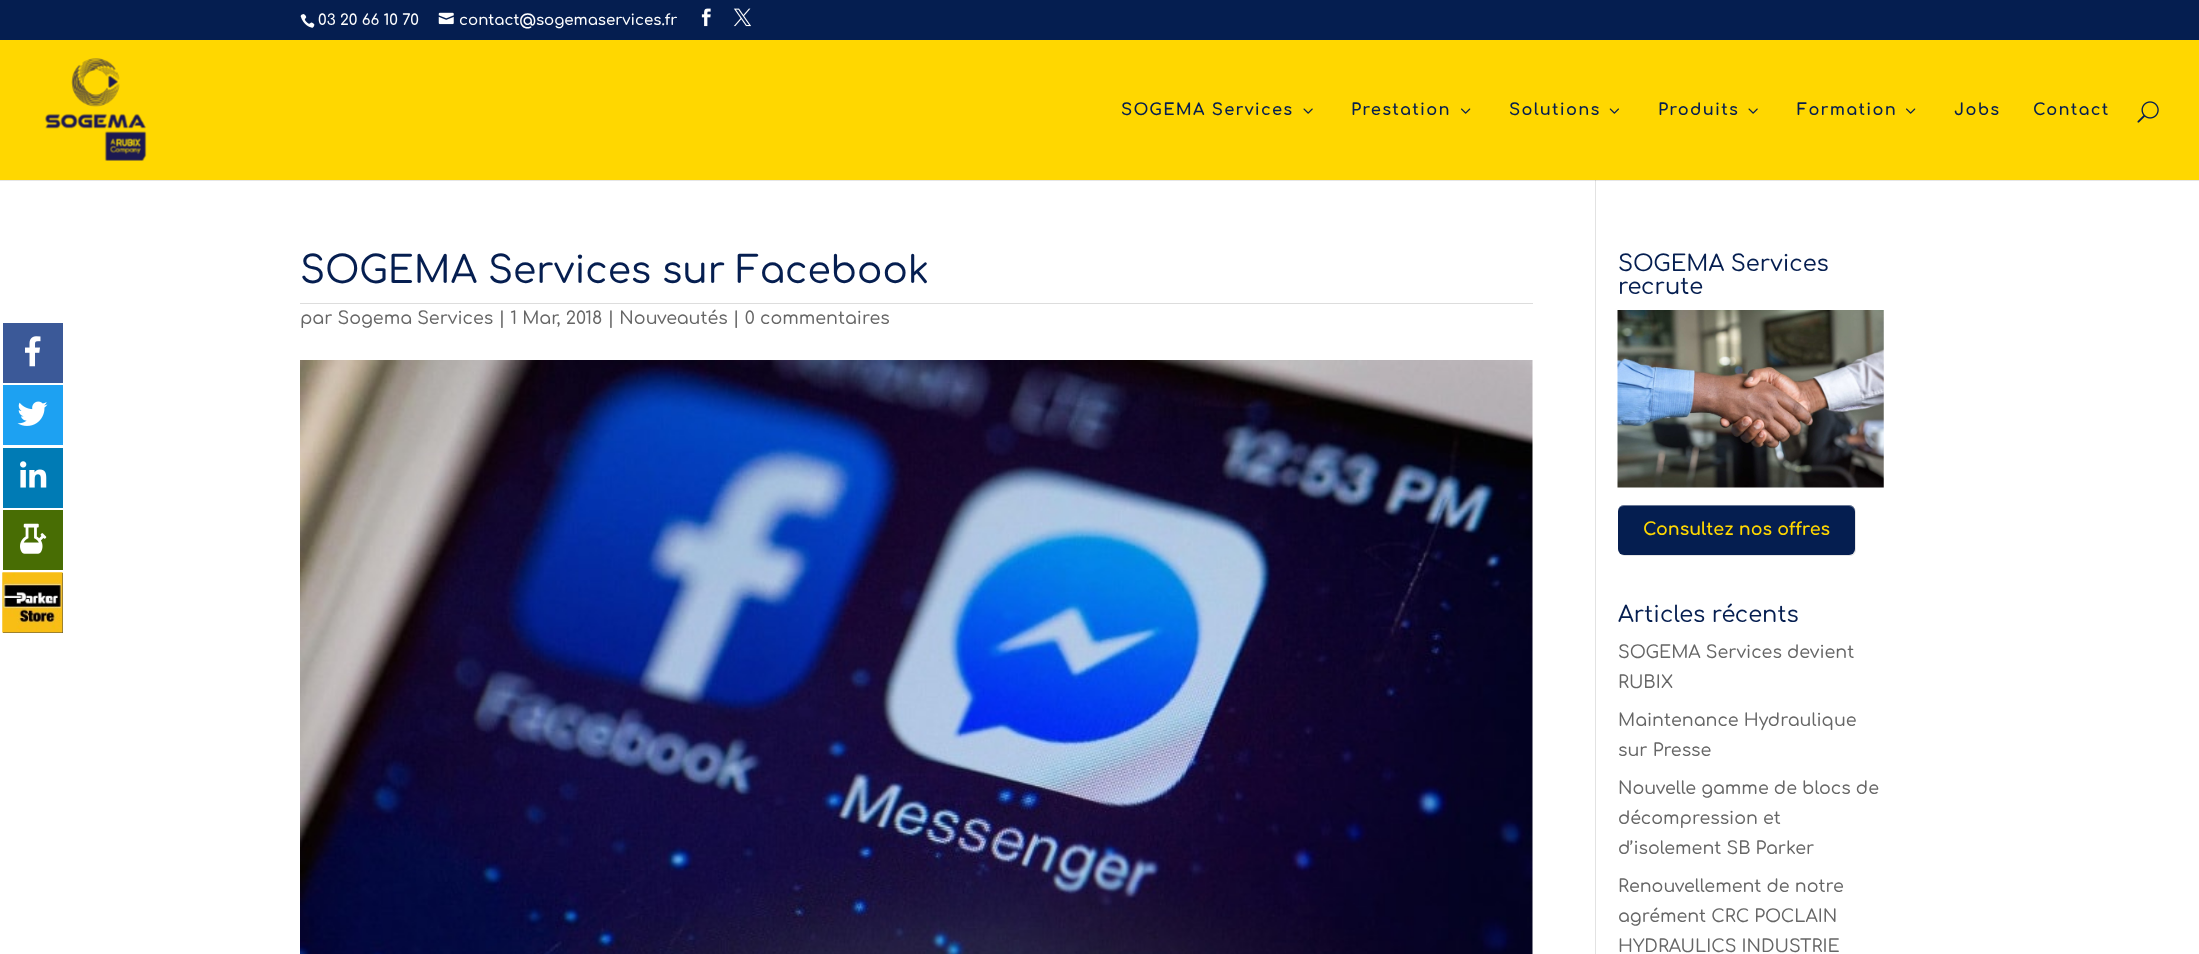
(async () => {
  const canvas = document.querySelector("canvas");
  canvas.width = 2199;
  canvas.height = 954;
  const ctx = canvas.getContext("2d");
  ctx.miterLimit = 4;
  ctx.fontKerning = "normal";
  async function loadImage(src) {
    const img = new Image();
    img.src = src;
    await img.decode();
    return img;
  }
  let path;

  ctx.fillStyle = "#051e50";
  ctx.fillRect(0, 0, 2199, 954);
  ctx.fillStyle = "#ffffff";
  ctx.fillRect(0, 181, 2199, 773);
  ctx.fillStyle = "#3b5998";
  ctx.fillRect(3, 323, 60, 60);
  ctx.drawImage(await loadImage("img/1.png"), 25, 336, 16, 31);
  ctx.fillStyle = "#1da1f2";
  ctx.fillRect(3, 385, 60, 60);
  ctx.drawImage(await loadImage("img/2.png"), 17, 401, 31, 25);
  ctx.fillStyle = "#007bb5";
  ctx.fillRect(3, 448, 60, 60);
  ctx.drawImage(await loadImage("img/3.png"), 20, 461, 27, 27);
  ctx.fillStyle = "#486d04";
  ctx.fillRect(3, 510, 60, 60);
  ctx.drawImage(await loadImage("img/4.png"), 20, 523, 27, 31);
  ctx.drawImage(await loadImage("img/17.png"), 2, 572, 61, 61);
  ctx.fillStyle = "#474747";
  ctx.fillRect(3, 573, 60, 60);
  ctx.drawImage(await loadImage("img/5.png"), 2, 572, 61, 61);
  ctx.drawImage(await loadImage("img/6.png"), 300, 14, 15, 14);
  ctx.drawImage(await loadImage("img/7.png"), 438, 12, 16, 13);
  ctx.drawImage(await loadImage("img/8.png"), 701, 8, 10, 19);
  ctx.drawImage(await loadImage("img/9.png"), 733, 8, 18, 19);
  ctx.fillStyle = "#ffd700";
  ctx.fillRect(0, 40, 2199, 140);
  ctx.drawImage(await loadImage("img/10.png"), 45, 58, 102, 103);
  ctx.drawImage(await loadImage("img/11.png"), 1303, 108, 10, 6);
  ctx.drawImage(await loadImage("img/12.png"), 1461, 108, 10, 6);
  ctx.drawImage(await loadImage("img/13.png"), 1609, 108, 10, 6);
  ctx.drawImage(await loadImage("img/11.png"), 1748, 108, 10, 6);
  ctx.drawImage(await loadImage("img/12.png"), 1906, 108, 10, 6);
  ctx.drawImage(await loadImage("img/14.png"), 2137, 101, 22, 22);
  for (const [x, y, w, h, color] of [
    [0, 180, 2199, 1, "#e6e6e6"],
    [1595, 180, 1, 774, "#e2e2e2"],
    [1595, 180, 1, 1, "#cbcbcb"],
    [300, 303, 1233, 1, "#dddddd"],
  ]) {
    ctx.fillStyle = color;
    ctx.fillRect(x, y, w, h);
  }
  ctx.drawImage(await loadImage("img/15.png"), 300, 360, 1233, 594);
  ctx.drawImage(await loadImage("img/16.png"), 1617, 310, 267, 178);
  ctx.fillStyle = "rgba(0, 0, 0, 0.1)";
  ctx.filter = "blur(0.5px)";
  ctx.beginPath();
  ctx.roundRect(1619, 506, 237, 50, 6);
  ctx.fill();
  ctx.filter = "none";
  ctx.fillStyle = "#051e50";
  ctx.beginPath();
  ctx.roundRect(1618, 505, 237, 50, 6);
  ctx.fill();
  ctx.fillStyle = "rgba(255, 255, 255, 0.4)";
  path = new Path2D("M1624 506H1849C1852 506 1855 509 1855 512V511C1855 508 1852 505 1849 505H1624C1621 505 1618 508 1618 511V512C1618 509 1620 506 1624 506Z");
  ctx.fill(path);
  ctx.font = "600 15px Comfortaa";
  ctx.fillStyle = "#ffffff";
  ctx.fillText("03 20 66 10 70", 318, 25);
  ctx.fillText("contact@sogemaservices.fr", 459, 25);
  ctx.letterSpacing = "1.25px";
  ctx.font = "bold 16.25px Comfortaa";
  ctx.fillStyle = "#051e50";
  for (const [text, x, y] of [
    ["SOGEMA Services", 1121, 115],
    ["Prestation", 1351, 115],
    ["Solutions", 1509, 115],
    ["Produits", 1658, 115],
    ["Formation", 1797, 115],
    ["Jobs", 1954, 115],
    ["Contact", 2033, 115],
  ]) {
    ctx.fillText(text, x, y);
  }
  ctx.letterSpacing = "0px";
  ctx.font = "500 37.5px Comfortaa";
  ctx.fillText("SOGEMA Services sur Facebook", 300, 283);
  ctx.font = "500 17.5px Comfortaa";
  ctx.fillStyle = "#666666";
  ctx.fillText("par Sogema Services | 1 Mar, 2018 | Nouveautés | 0 commentaires", 300, 324);
  ctx.font = "500 22.5px Comfortaa";
  ctx.fillStyle = "#051e50";
  ctx.fillText("SOGEMA Services", 1618, 271);
  ctx.fillText("recrute", 1618, 294);
  ctx.font = "bold 17.5px Comfortaa";
  ctx.fillStyle = "#ffd700";
  ctx.fillText("Consultez nos offres", 1643, 535);
  ctx.font = "500 22.5px Comfortaa";
  ctx.fillStyle = "#051e50";
  ctx.fillText("Articles récents", 1618, 622);
  ctx.font = "500 17.5px Comfortaa";
  ctx.fillStyle = "#666666";
  for (const [text, x, y] of [
    ["SOGEMA Services devient", 1618, 658],
    ["RUBIX", 1618, 688],
    ["Maintenance Hydraulique", 1618, 726],
    ["sur Presse", 1618, 756],
    ["Nouvelle gamme de blocs de", 1618, 794],
    ["décompression et", 1618, 824],
    ["d’isolement SB Parker", 1618, 854],
    ["Renouvellement de notre", 1618, 892],
    ["agrément CRC POCLAIN", 1618, 922],
    ["HYDRAULICS INDUSTRIE", 1618, 952],
  ]) {
    ctx.fillText(text, x, y);
  }
})();
